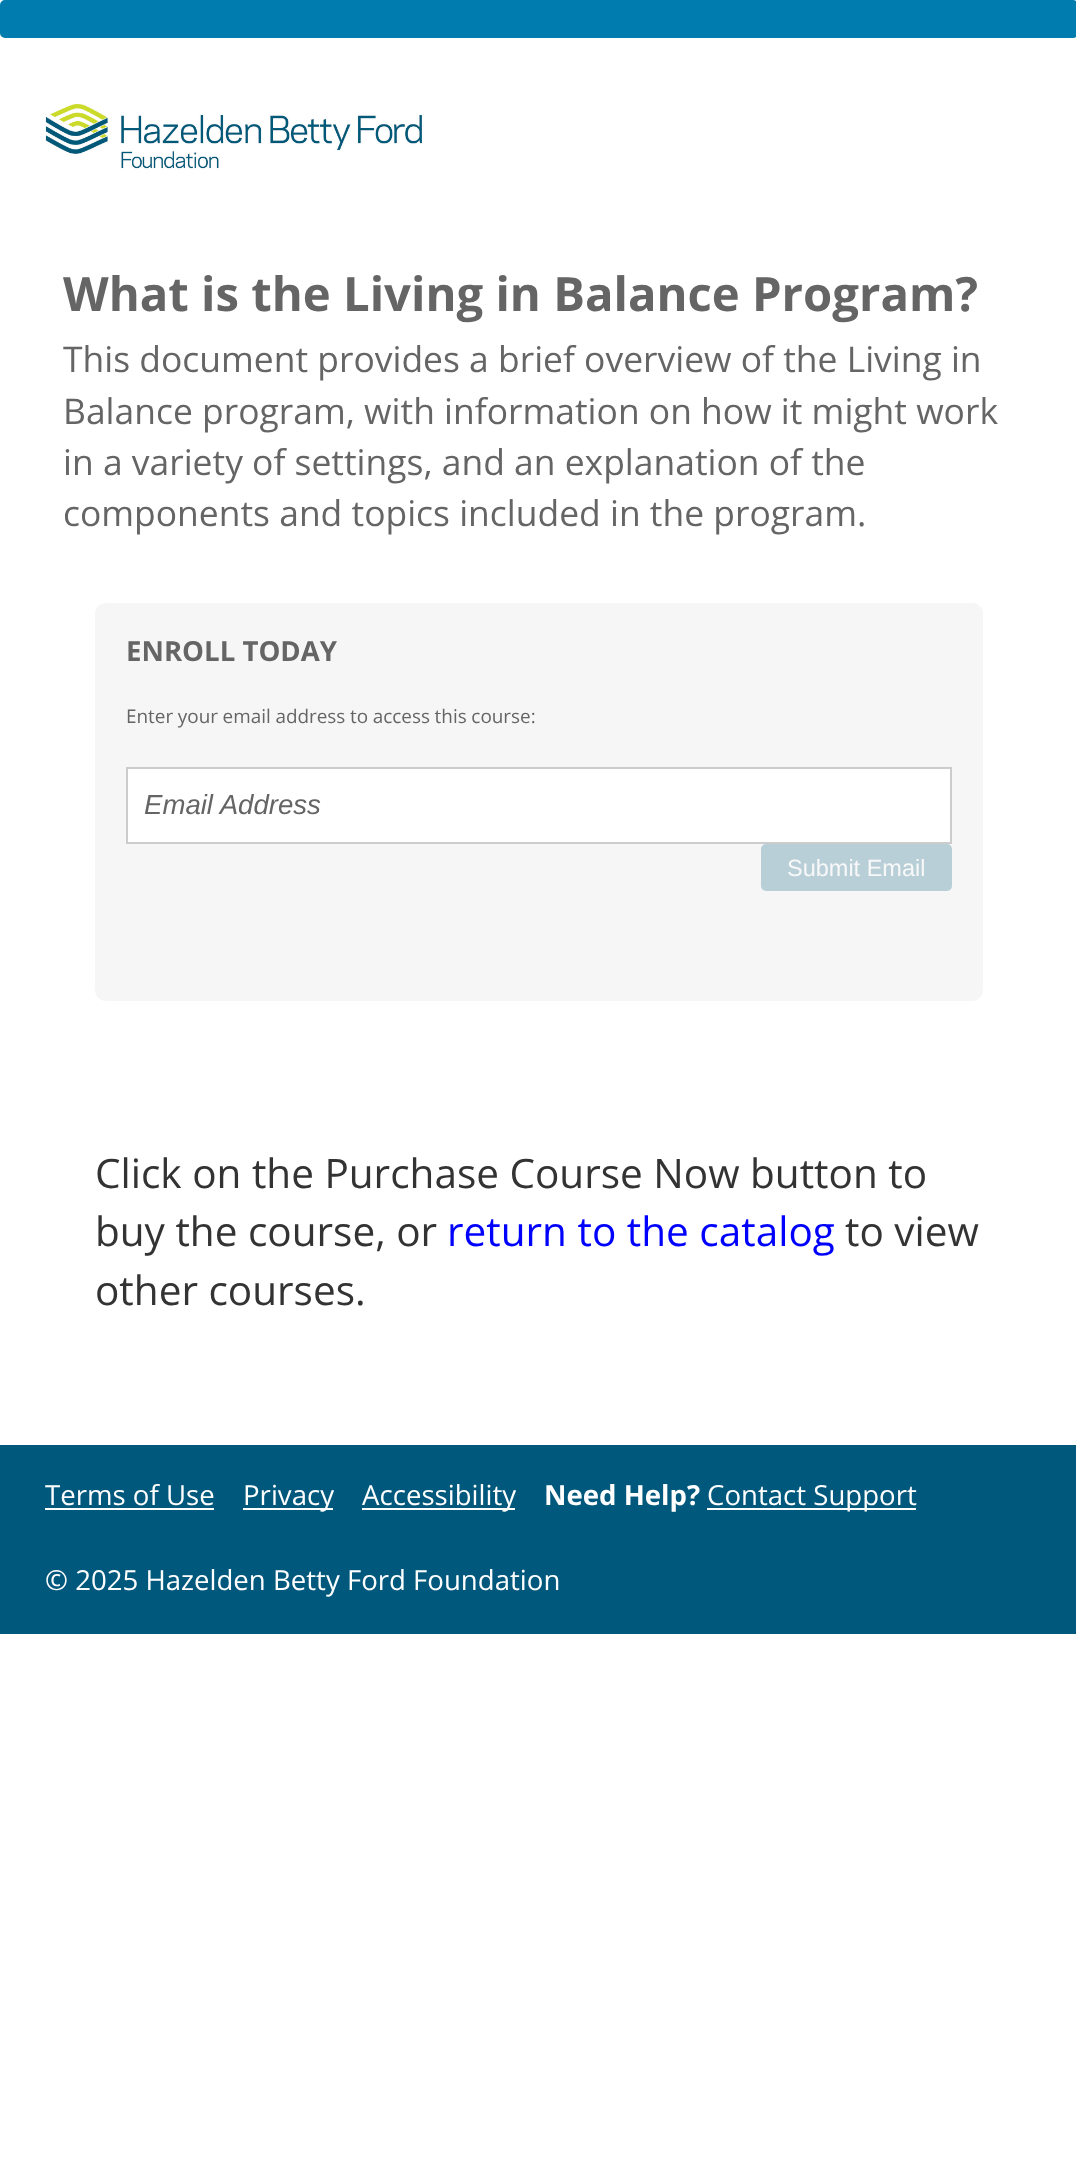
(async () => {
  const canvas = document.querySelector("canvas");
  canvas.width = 1076;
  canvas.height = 2162;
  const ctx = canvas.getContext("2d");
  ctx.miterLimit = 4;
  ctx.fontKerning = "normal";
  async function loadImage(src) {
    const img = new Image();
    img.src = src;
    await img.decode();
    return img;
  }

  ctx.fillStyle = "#ffffff";
  ctx.fillRect(0, 0, 1076, 2162);
  ctx.drawImage(await loadImage("img/1.png"), 45, 104, 378, 66);
  ctx.fillStyle = "#007caf";
  ctx.beginPath();
  ctx.roundRect(1, 1, 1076, 36, 4);
  ctx.fill();
  ctx.strokeStyle = "#007caf";
  ctx.lineWidth = 2;
  ctx.stroke();
  ctx.fillStyle = "#f6f6f6";
  ctx.beginPath();
  ctx.roundRect(95, 603, 888, 398, 11);
  ctx.fill();
  ctx.fillStyle = "#ffffff";
  ctx.beginPath();
  ctx.rect(127, 768, 824, 75);
  ctx.fill();
  ctx.strokeStyle = "#cccccc";
  ctx.stroke();
  ctx.fillStyle = "#b9cfd8";
  ctx.beginPath();
  ctx.roundRect(762, 845, 189, 45, 4);
  ctx.fill();
  ctx.strokeStyle = "#b9cfd8";
  ctx.stroke();
  for (const [x, y, w, h, color] of [
    [0, 1445, 1076, 189, "#00587c"],
    [45, 1508, 169, 2, "#ffffff"],
    [243, 1508, 90, 2, "#ffffff"],
    [362, 1508, 153, 2, "#ffffff"],
    [707, 1508, 209, 2, "#ffffff"],
  ]) {
    ctx.fillStyle = color;
    ctx.fillRect(x, y, w, h);
  }
  ctx.font = "bold 47.25px Open Sans";
  ctx.fillStyle = "#656565";
  ctx.fillText("What is the Living in Balance Program?", 63, 311);
  ctx.font = "35.45px Open Sans";
  for (const [text, x, y] of [
    ["This document provides a brief overview of the Living in", 63, 372],
    ["Balance program, with information on how it might work", 63, 424],
    ["in a variety of settings, and an explanation of the", 63, 475],
    ["components and topics included in the program.", 63, 526],
  ]) {
    ctx.fillText(text, x, y);
  }
  ctx.font = "bold 27.6px Open Sans";
  ctx.fillText("ENROLL TODAY", 126, 661);
  ctx.wordSpacing = "-0.25px";
  ctx.font = "18.9px Open Sans";
  ctx.fillText("Enter your email address to access this course:", 126, 723);
  ctx.wordSpacing = "0px";
  ctx.font = "italic 27.6px Liberation Sans";
  ctx.fillText("Email Address", 144, 814);
  ctx.font = "23.5px Liberation Sans";
  ctx.fillStyle = "#f8f8f8";
  ctx.fillText("Submit Email", 787, 876);
  ctx.font = "40.5px Open Sans";
  ctx.fillStyle = "#333333";
  ctx.fillText("Click on the Purchase Course Now button to", 95, 1188);
  ctx.fillText("buy the course, or", 95, 1246);
  ctx.fillStyle = "#0000ff";
  ctx.fillText("return to the catalog", 447, 1246);
  ctx.fillStyle = "#333333";
  ctx.fillText("to view", 845, 1246);
  ctx.fillText("other courses.", 95, 1305);
  ctx.font = "27.6px Open Sans";
  ctx.fillStyle = "#ffffff";
  for (const [text, x, y] of [
    ["Terms of Use", 45, 1505],
    ["Privacy", 243, 1505],
    ["Accessibility", 362, 1505],
  ]) {
    ctx.fillText(text, x, y);
  }
  ctx.font = "bold 27.6px Open Sans";
  ctx.fillText("Need Help?", 544, 1505);
  ctx.font = "27.6px Open Sans";
  ctx.fillText("Contact Support", 707, 1505);
  ctx.fillText("© 2025 Hazelden Betty Ford Foundation", 45, 1590);
})();
